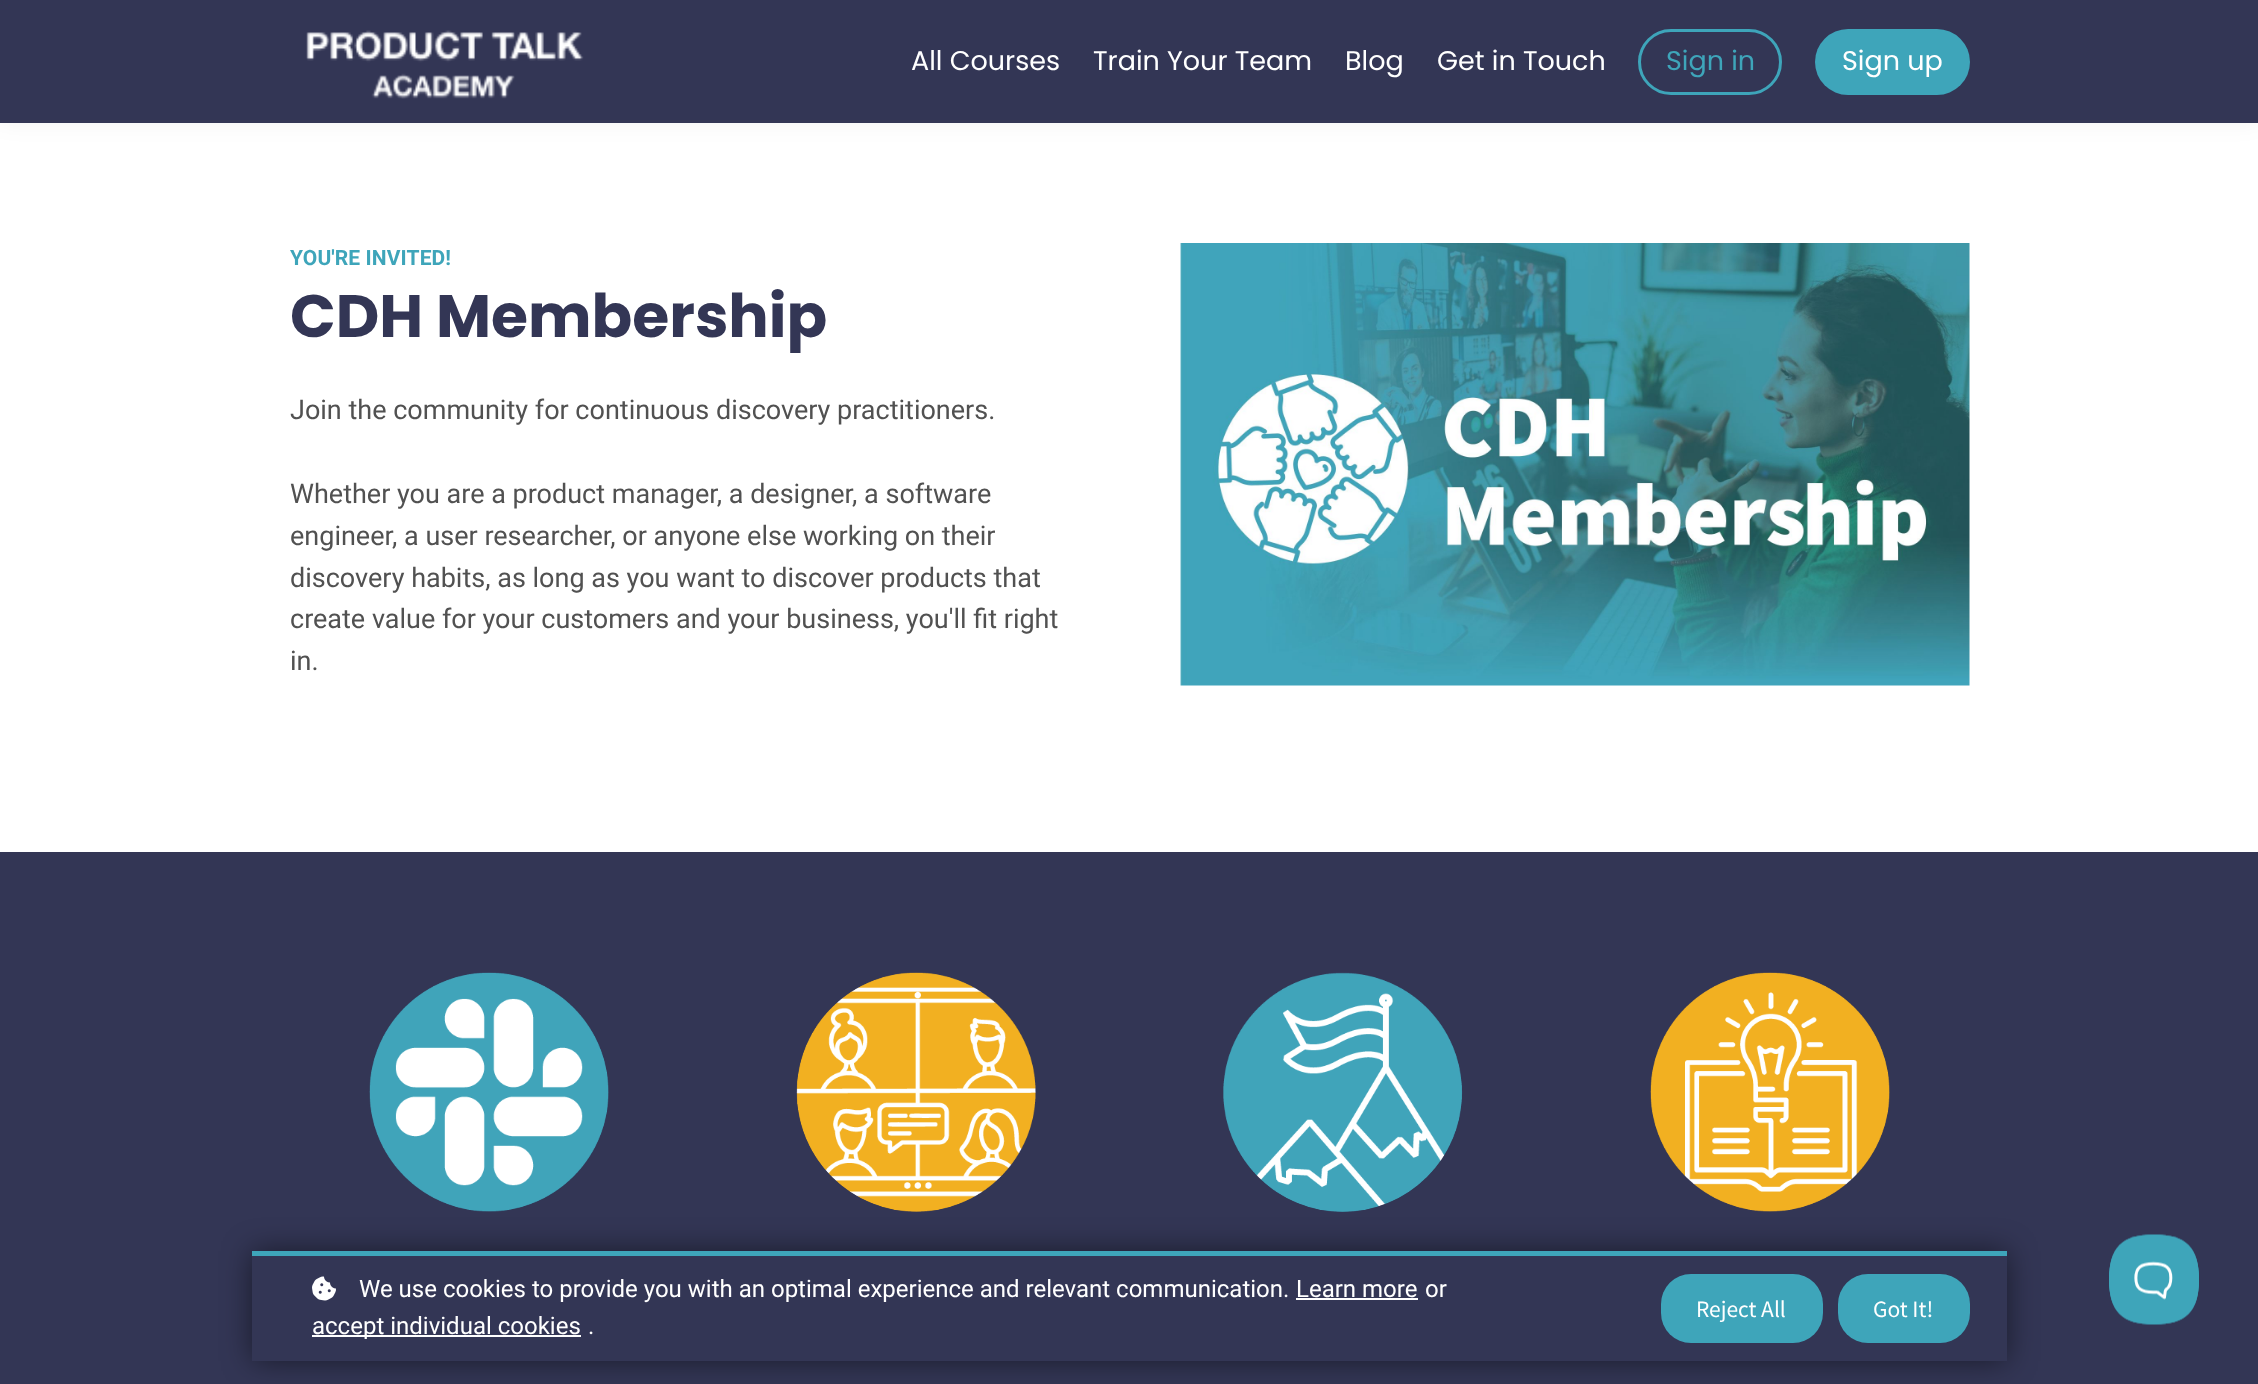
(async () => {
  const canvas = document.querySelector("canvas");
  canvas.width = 2258;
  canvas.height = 1384;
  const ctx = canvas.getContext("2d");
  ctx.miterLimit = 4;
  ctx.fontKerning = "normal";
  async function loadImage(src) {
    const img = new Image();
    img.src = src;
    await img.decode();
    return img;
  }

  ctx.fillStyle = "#ffffff";
  ctx.fillRect(0, 0, 2258, 1384);
  ctx.fillStyle = "rgba(0, 0, 0, 0.05)";
  ctx.filter = "blur(11px)";
  ctx.beginPath();
  ctx.rect(0, 0, 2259, 123);
  ctx.fill();
  ctx.filter = "none";
  ctx.fillStyle = "#333655";
  ctx.fillRect(0, 0, 2258, 123);
  ctx.drawImage(await loadImage("img/1.png"), 306, 30, 278, 69);
  ctx.beginPath();
  ctx.roundRect(1639.5, 30.5, 141, 63, 31.5);
  ctx.strokeStyle = "#3ea5ba";
  ctx.lineWidth = 3;
  ctx.stroke();
  ctx.fillStyle = "#3ea5ba";
  ctx.beginPath();
  ctx.roundRect(1815, 29, 155, 66, 33);
  ctx.fill();
  ctx.drawImage(await loadImage("img/2.png"), 1180, 243, 790, 443);
  ctx.fillStyle = "#333655";
  ctx.fillRect(0, 852, 2258, 532);
  ctx.drawImage(await loadImage("img/3.png"), 369, 972, 240, 240);
  ctx.drawImage(await loadImage("img/4.png"), 796, 972, 240, 240);
  ctx.drawImage(await loadImage("img/5.png"), 1223, 972, 240, 240);
  ctx.drawImage(await loadImage("img/6.png"), 1650, 972, 240, 240);
  ctx.fillStyle = "rgba(0, 0, 0, 0.5)";
  ctx.filter = "blur(15px)";
  ctx.beginPath();
  ctx.rect(252, 1251, 1755, 110);
  ctx.fill();
  ctx.filter = "none";
  ctx.fillStyle = "#333655";
  ctx.fillRect(252, 1256, 1755, 105);
  ctx.fillStyle = "#3ea5ba";
  ctx.fillRect(252, 1251, 1755, 5);
  ctx.drawImage(await loadImage("img/7.png"), 312, 1276, 24, 25);
  ctx.fillStyle = "#ffffff";
  ctx.fillRect(1296, 1298, 122, 2);
  ctx.fillRect(312, 1335, 269, 2);
  ctx.fillStyle = "#3ea5ba";
  ctx.beginPath();
  ctx.roundRect(1661, 1274, 162, 69, 30);
  ctx.fill();
  ctx.beginPath();
  ctx.roundRect(1838, 1274, 132, 69, 30);
  ctx.fill();
  ctx.drawImage(await loadImage("img/8.png"), 2109, 1234, 90, 91);
  ctx.font = "27px Poppins";
  ctx.fillStyle = "#ffffff";
  for (const [text, x, y] of [
    ["All Courses", 911, 70],
    ["Train Your Team", 1093, 70],
    ["Blog", 1345, 70],
    ["Get in Touch", 1437, 70],
  ]) {
    ctx.fillText(text, x, y);
  }
  ctx.fillStyle = "#3ea5ba";
  ctx.fillText("Sign in", 1666, 70);
  ctx.fillStyle = "#ffffff";
  ctx.fillText("Sign up", 1842, 70);
  ctx.letterSpacing = "0.1px";
  ctx.font = "bold 21px Roboto";
  ctx.fillStyle = "#3ea5ba";
  ctx.fillText("YOU'RE INVITED!", 290, 265);
  ctx.letterSpacing = "0px";
  ctx.font = "bold 60px Poppins";
  ctx.fillStyle = "#333655";
  ctx.fillText("CDH Membership", 290, 337);
  ctx.font = "27px Roboto";
  ctx.fillStyle = "#515151";
  for (const [text, x, y] of [
    ["Join the community for continuous discovery practitioners.", 290, 419],
    ["Whether you are a product manager, a designer, a software", 290, 503],
    ["engineer, a user researcher, or anyone else working on their", 290, 545],
    ["discovery habits, as long as you want to discover products that", 290, 587],
    ["create value for your customers and your business, you'll fit right", 290, 628],
    ["in.", 290, 670],
  ]) {
    ctx.fillText(text, x, y);
  }
  ctx.font = "24px Roboto";
  ctx.fillStyle = "#ffffff";
  for (const [text, x, y] of [
    ["We use cookies to provide you with an optimal experience and relevant communication.", 359, 1297],
    ["Learn more", 1296, 1297],
    ["or", 1425, 1297],
    ["accept individual cookies", 312, 1334],
    [".", 588, 1334],
  ]) {
    ctx.fillText(text, x, y);
  }
  ctx.font = "21px Noto Sans JP";
  ctx.fillText("Reject All", 1696, 1317);
  ctx.fillText("Got It!", 1873, 1317);
})();
